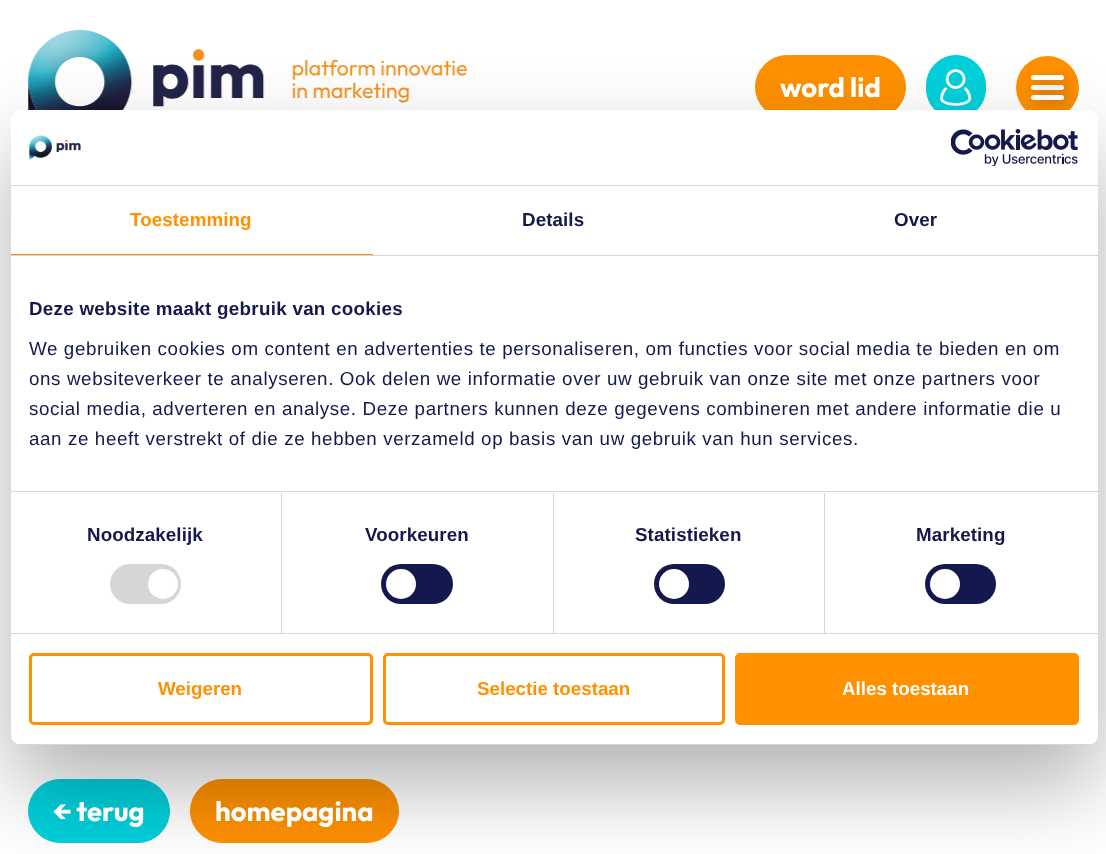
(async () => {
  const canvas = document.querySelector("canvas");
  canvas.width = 1106;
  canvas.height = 854;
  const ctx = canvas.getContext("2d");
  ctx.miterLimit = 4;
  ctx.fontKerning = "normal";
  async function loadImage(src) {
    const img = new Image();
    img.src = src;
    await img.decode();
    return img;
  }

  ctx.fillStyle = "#ffffff";
  ctx.fillRect(0, 0, 1106, 854);
  ctx.drawImage(await loadImage("img/1.png"), 28, 30, 440, 80);
  ctx.fillStyle = "#ff9100";
  ctx.beginPath();
  ctx.roundRect(755.5, 55.5, 150, 63, 31.5);
  ctx.fill();
  ctx.strokeStyle = "#ff9100";
  ctx.stroke();
  ctx.fillStyle = "#00d0db";
  ctx.beginPath();
  ctx.roundRect(926.5, 55.5, 59, 63, 29.5);
  ctx.fill();
  ctx.strokeStyle = "#00d0db";
  ctx.stroke();
  ctx.drawImage(await loadImage("img/2.png"), 940, 69, 32, 37);
  ctx.fillStyle = "#ff9100";
  ctx.beginPath();
  ctx.arc(1047.5, 87.5, 31.5, 0, Math.PI * 2);
  ctx.fill();
  ctx.fillStyle = "rgba(30, 34, 46, 0.25)";
  ctx.filter = "blur(6px)";
  ctx.beginPath();
  ctx.roundRect(1035, 89, 33, 5, 2.5);
  ctx.fill();
  ctx.filter = "none";
  ctx.fillStyle = "#ffffff";
  ctx.beginPath();
  ctx.roundRect(1031, 85, 33, 5, 2.5);
  ctx.fill();
  ctx.fillStyle = "rgba(30, 34, 46, 0.25)";
  ctx.filter = "blur(6px)";
  ctx.beginPath();
  ctx.roundRect(1035, 79, 33, 5, 2.5);
  ctx.fill();
  ctx.filter = "none";
  ctx.fillStyle = "#ffffff";
  ctx.beginPath();
  ctx.roundRect(1031, 75, 33, 5, 2.5);
  ctx.fill();
  ctx.fillStyle = "rgba(30, 34, 46, 0.25)";
  ctx.filter = "blur(6px)";
  ctx.beginPath();
  ctx.roundRect(1035, 99, 33, 5, 2.5);
  ctx.fill();
  ctx.filter = "none";
  ctx.fillStyle = "#ffffff";
  ctx.beginPath();
  ctx.roundRect(1031, 95, 33, 5, 2.5);
  ctx.fill();
  ctx.fillStyle = "#00d0db";
  ctx.beginPath();
  ctx.roundRect(28.5, 779.5, 141, 63, 31.5);
  ctx.fill();
  ctx.stroke();
  ctx.fillStyle = "#ff9100";
  ctx.beginPath();
  ctx.roundRect(190.5, 779.5, 208, 63, 31.5);
  ctx.fill();
  ctx.strokeStyle = "#ff9100";
  ctx.stroke();
  ctx.fillStyle = "rgba(0, 0, 0, 0.3)";
  ctx.filter = "blur(42.5px)";
  ctx.beginPath();
  ctx.roundRect(11, 150, 1087, 635, 10);
  ctx.fill();
  ctx.filter = "none";
  ctx.fillStyle = "#ffffff";
  ctx.beginPath();
  ctx.roundRect(11, 110, 1087, 635, 10);
  ctx.fill();
  ctx.fillStyle = "#d6d6d6";
  ctx.fillRect(11, 185, 1087, 1);
  ctx.drawImage(await loadImage("img/3.png"), 29, 135, 52, 25);
  ctx.drawImage(await loadImage("img/4.png"), 951, 129, 127, 37);
  for (const [x, y, w, h, color] of [
    [11, 255, 1087, 1, "#d6d6d6"],
    [11, 254, 362, 1, "#ff9100"],
    [11, 491, 1087, 1, "#d6d6d6"],
    [11, 633, 1087, 1, "#d6d6d6"],
    [281, 493, 1, 140, "#d6d6d6"],
  ]) {
    ctx.fillStyle = color;
    ctx.fillRect(x, y, w, h);
  }
  ctx.beginPath();
  ctx.roundRect(110, 564, 71, 40, 20);
  ctx.fill();
  ctx.fillStyle = "#ffffff";
  ctx.beginPath();
  ctx.arc(163, 584, 15, 0, Math.PI * 2);
  ctx.fill();
  ctx.fillStyle = "#d6d6d6";
  ctx.fillRect(553, 493, 1, 140);
  ctx.fillStyle = "#14194d";
  ctx.beginPath();
  ctx.roundRect(381, 564, 72, 40, 20);
  ctx.fill();
  ctx.fillStyle = "#ffffff";
  ctx.beginPath();
  ctx.arc(401, 584, 15, 0, Math.PI * 2);
  ctx.fill();
  ctx.fillStyle = "#d6d6d6";
  ctx.fillRect(824, 493, 1, 140);
  ctx.fillStyle = "#14194d";
  ctx.beginPath();
  ctx.roundRect(654, 564, 71, 40, 20);
  ctx.fill();
  ctx.fillStyle = "#ffffff";
  ctx.beginPath();
  ctx.arc(674, 584, 15, 0, Math.PI * 2);
  ctx.fill();
  ctx.fillStyle = "#14194d";
  ctx.beginPath();
  ctx.roundRect(925, 564, 71, 40, 20);
  ctx.fill();
  ctx.fillStyle = "#ffffff";
  ctx.beginPath();
  ctx.arc(945, 584, 15, 0, Math.PI * 2);
  ctx.fill();
  ctx.save();
  ctx.beginPath();
  ctx.roundRect(11, 110, 1087, 635, 10);
  ctx.clip();
  ctx.fillStyle = "#d6d6d6";
  ctx.fillRect(11, 744, 1087, 1);
  ctx.restore();
  ctx.beginPath();
  ctx.roundRect(30.5, 654.5, 341, 69, 3.5);
  ctx.lineWidth = 3;
  ctx.stroke();
  ctx.beginPath();
  ctx.roundRect(384.5, 654.5, 339, 69, 3.5);
  ctx.stroke();
  ctx.fillStyle = "#ff9100";
  ctx.beginPath();
  ctx.roundRect(736.5, 654.5, 341, 69, 3.5);
  ctx.fill();
  ctx.stroke();
  ctx.font = "bold 27.5px Outfit";
  ctx.fillStyle = "#ffffff";
  for (const [text, x, y] of [
    ["word lid", 780, 97],
    ["← terug", 53, 821],
    ["homepagina", 215, 821],
  ]) {
    ctx.fillText(text, x, y);
  }
  ctx.letterSpacing = "0.1px";
  ctx.font = "bold 18.75px Liberation Sans";
  ctx.fillStyle = "#ff9100";
  ctx.fillText("Toestemming", 130, 226);
  ctx.fillStyle = "#14194d";
  ctx.fillText("Details", 522, 226);
  ctx.fillText("Over", 894, 226);
  ctx.letterSpacing = "0.3px";
  ctx.fillText("Deze website maakt gebruik van cookies", 29, 315);
  ctx.letterSpacing = "0.62px";
  ctx.font = "18.75px Liberation Sans";
  for (const [text, x, y] of [
    ["We gebruiken cookies om content en advertenties te personaliseren, om functies voor social media te bieden en om", 29, 355],
    ["ons websiteverkeer te analyseren. Ook delen we informatie over uw gebruik van onze site met onze partners voor", 29, 385],
    ["social media, adverteren en analyse. Deze partners kunnen deze gegevens combineren met andere informatie die u", 29, 415],
    ["aan ze heeft verstrekt of die ze hebben verzameld op basis van uw gebruik van hun services.", 29, 445],
  ]) {
    ctx.fillText(text, x, y);
  }
  ctx.letterSpacing = "0.1px";
  ctx.font = "bold 18.75px Liberation Sans";
  for (const [text, x, y] of [
    ["Noodzakelijk", 87, 541],
    ["Voorkeuren", 365, 541],
    ["Statistieken", 635, 541],
    ["Marketing", 916, 541],
  ]) {
    ctx.fillText(text, x, y);
  }
  ctx.letterSpacing = "0px";
  ctx.fillStyle = "#ff9100";
  ctx.fillText("Weigeren", 158, 695);
  ctx.fillText("Selectie toestaan", 477, 695);
  ctx.fillStyle = "#ffffff";
  ctx.fillText("Alles toestaan", 842, 695);
})();
